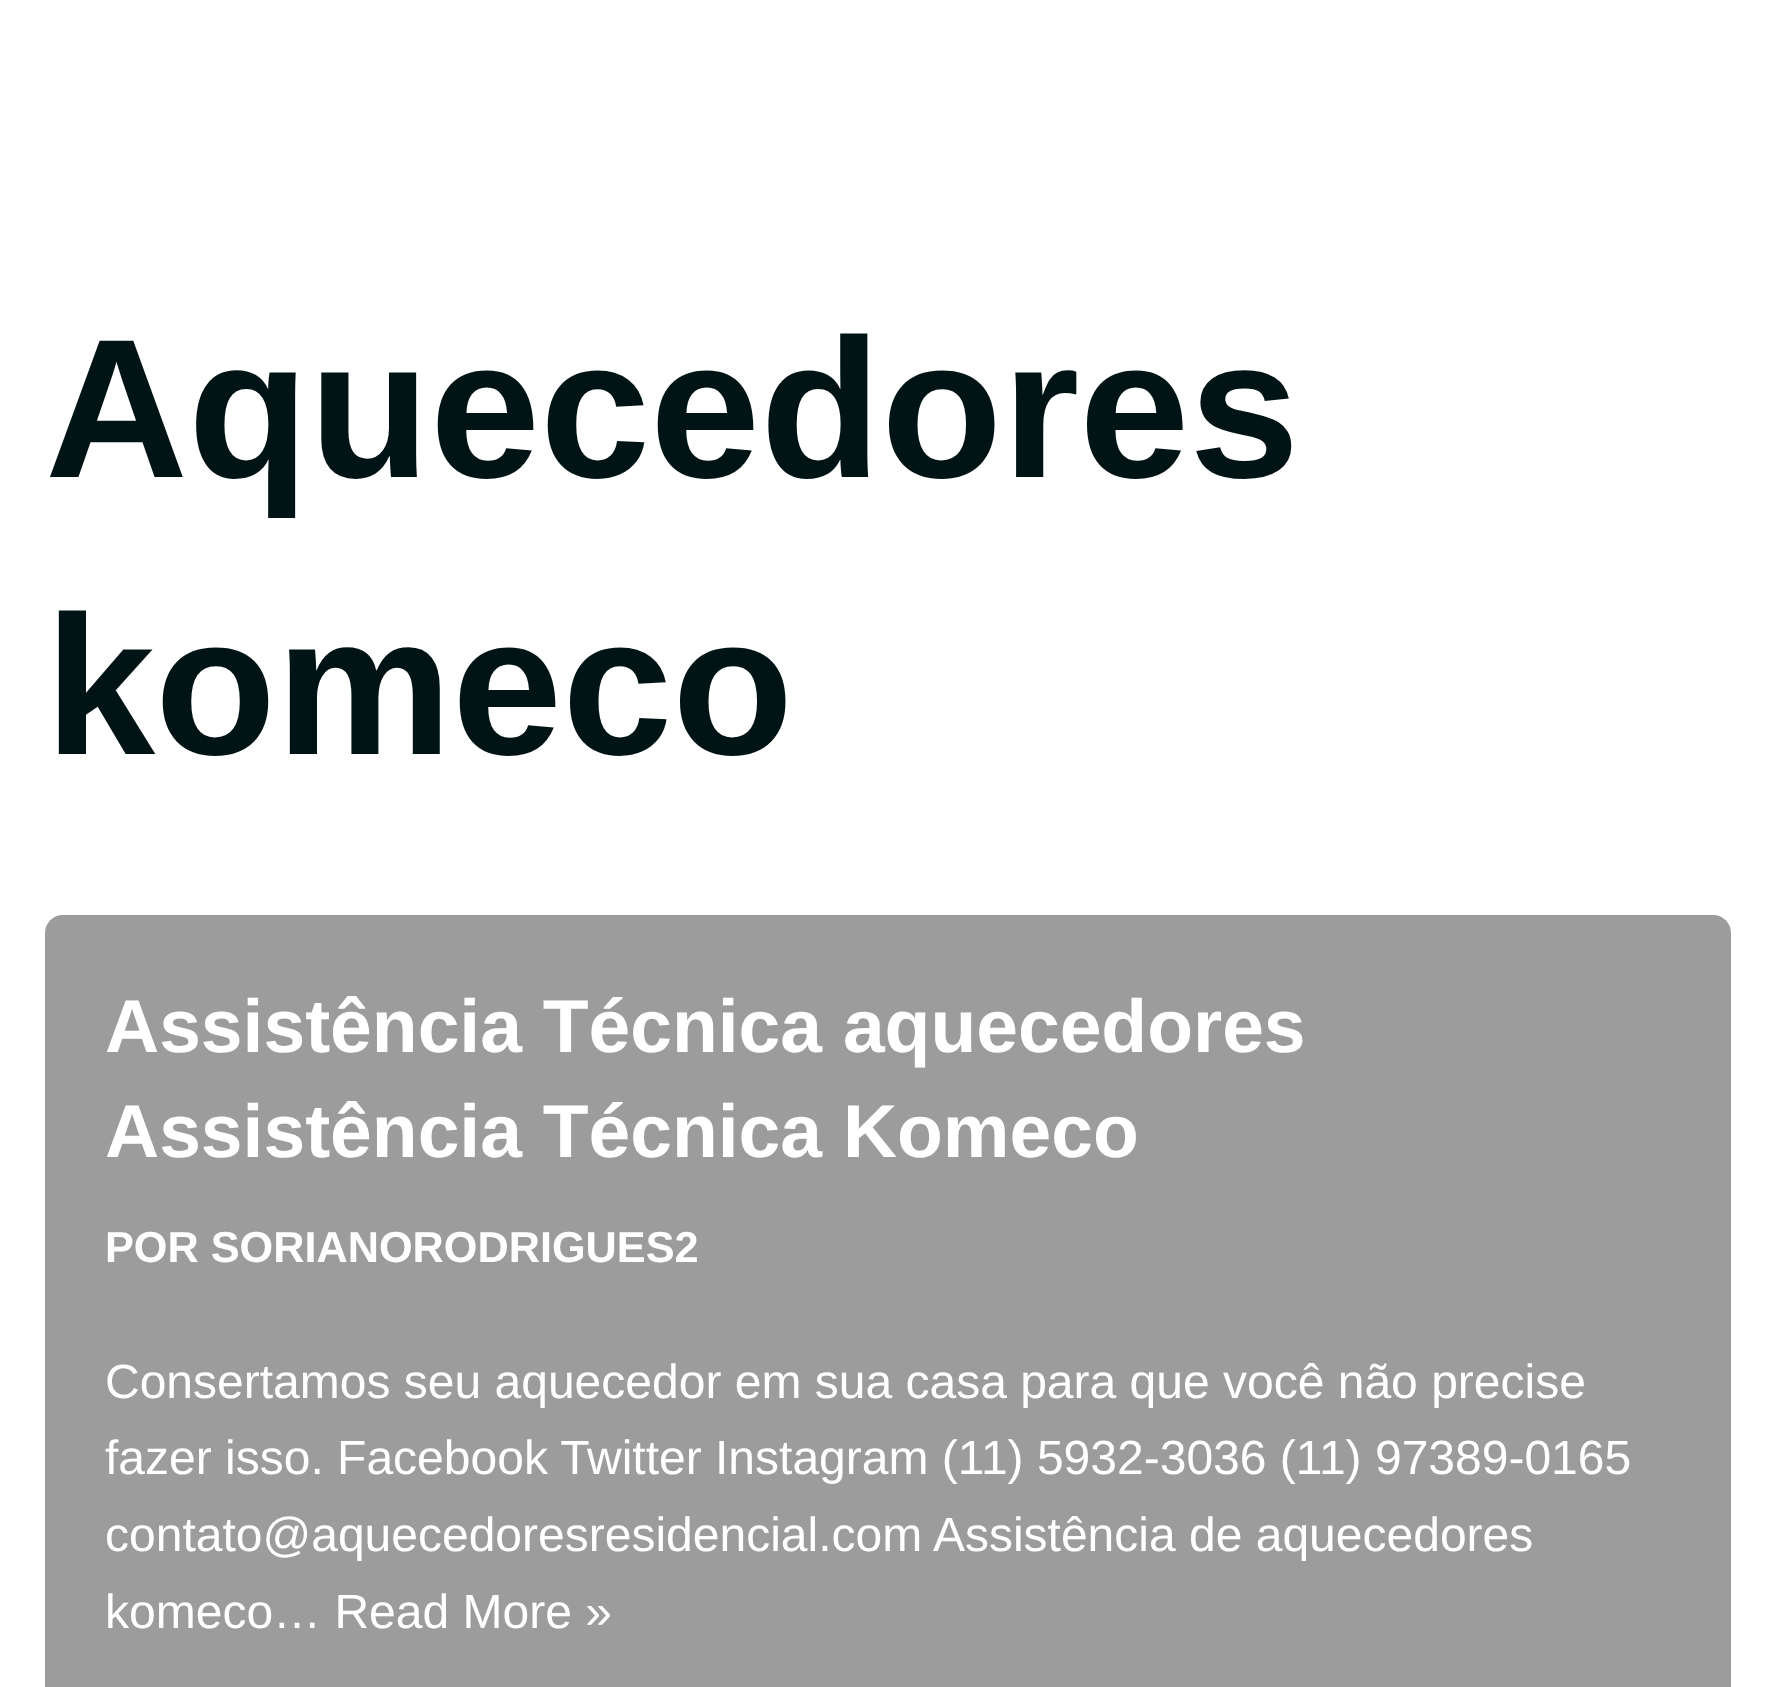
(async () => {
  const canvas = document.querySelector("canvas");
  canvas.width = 1774;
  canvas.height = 1687;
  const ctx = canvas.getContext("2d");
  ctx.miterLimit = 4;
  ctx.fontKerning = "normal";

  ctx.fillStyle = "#ffffff";
  ctx.fillRect(0, 0, 1774, 1687);
  ctx.fillStyle = "#9c9c9c";
  ctx.beginPath();
  ctx.roundRect(45, 915, 1686, 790, 18);
  ctx.fill();
  ctx.font = "bold 198px Liberation Sans";
  ctx.fillStyle = "#001416";
  ctx.fillText("Aquecedores", 45, 477);
  ctx.fillText("komeco", 45, 754);
  ctx.font = "bold 75px Liberation Sans";
  ctx.fillStyle = "#ffffff";
  ctx.fillText("Assistência Técnica aquecedores", 105, 1052);
  ctx.fillText("Assistência Técnica Komeco", 105, 1157);
  ctx.font = "bold 43.25px Liberation Sans";
  ctx.fillText("POR SORIANORODRIGUES2", 105, 1262);
  ctx.font = "48px Liberation Sans";
  for (const [text, x, y] of [
    ["Consertamos seu aquecedor em sua casa para que você não precise", 105, 1398],
    ["fazer isso. Facebook Twitter Instagram (11) 5932-3036 (11) 97389-0165", 105, 1474],
    ["contato@aquecedoresresidencial.com Assistência de aquecedores", 105, 1551],
    ["komeco… Read More »", 105, 1628],
  ]) {
    ctx.fillText(text, x, y);
  }
})();
